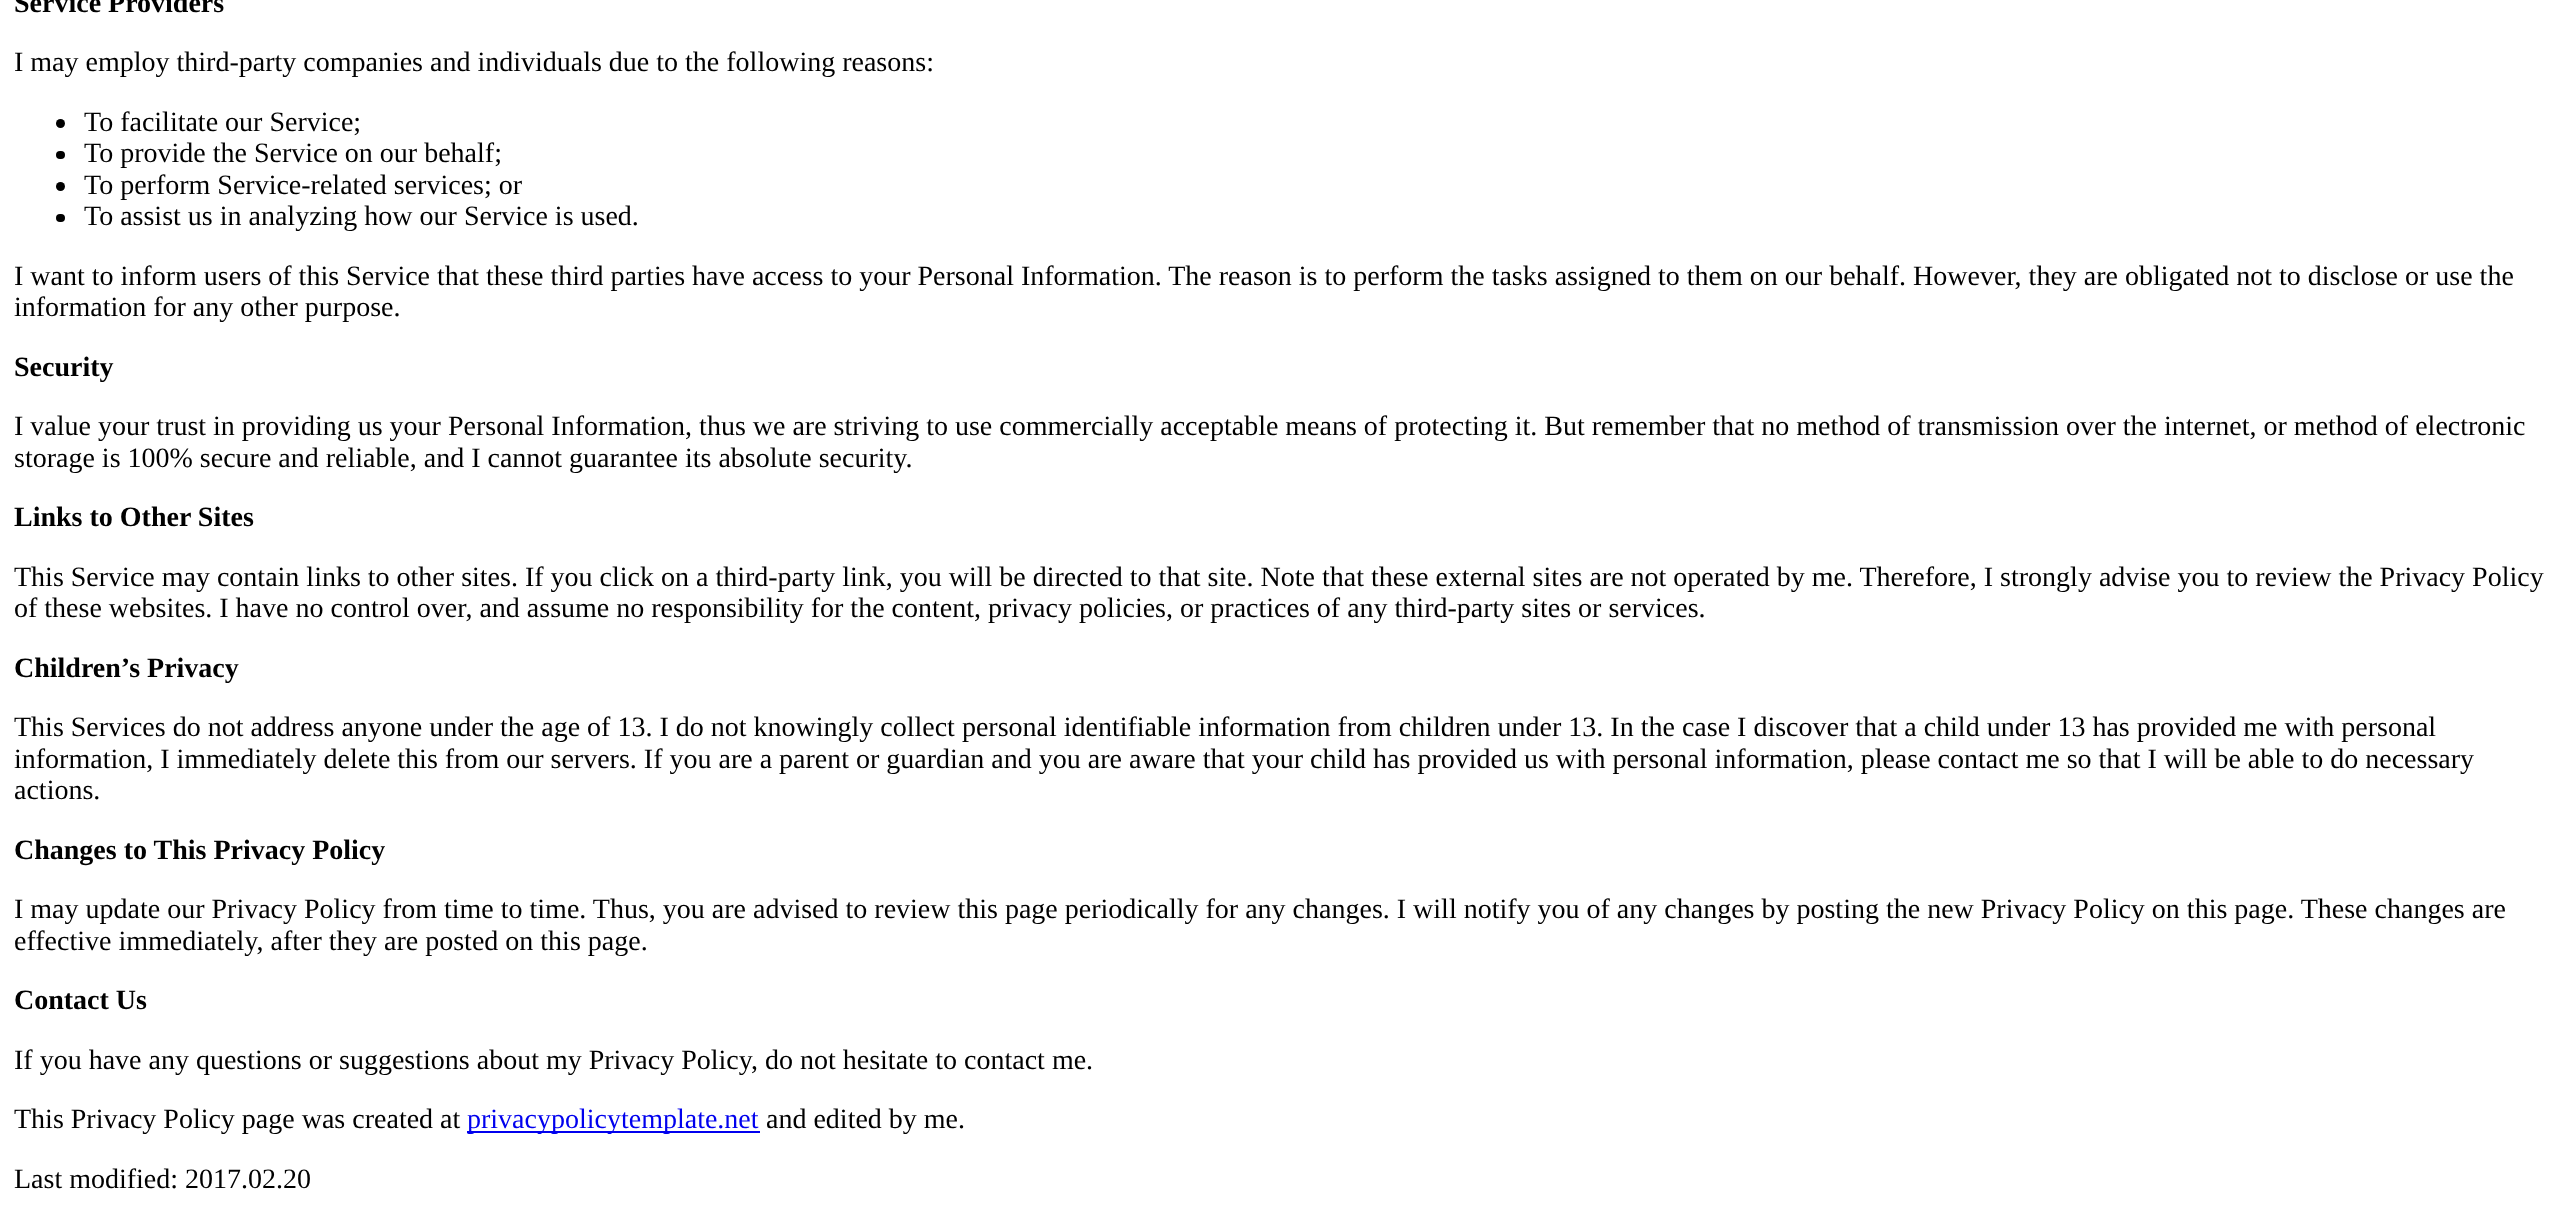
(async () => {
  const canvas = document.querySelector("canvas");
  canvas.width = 2559;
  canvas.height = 1223;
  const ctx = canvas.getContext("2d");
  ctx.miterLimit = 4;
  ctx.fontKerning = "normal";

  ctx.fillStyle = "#ffffff";
  ctx.fillRect(0, 0, 2559, 1223);
  ctx.fillStyle = "#000000";
  ctx.beginPath();
  ctx.arc(60.5, 123.5, 4.5, 0, Math.PI * 2);
  ctx.fill();
  ctx.beginPath();
  ctx.roundRect(56, 151, 9, 8, 4);
  ctx.fill();
  ctx.beginPath();
  ctx.arc(60.5, 186.5, 4.5, 0, Math.PI * 2);
  ctx.fill();
  ctx.beginPath();
  ctx.roundRect(56, 214, 9, 8, 4);
  ctx.fill();
  ctx.fillStyle = "#0000ee";
  ctx.fillRect(467, 1131, 293, 2);
  ctx.font = "bold 28px Liberation Serif";
  ctx.fillStyle = "#000000";
  ctx.fillText("Service Providers", 14, 12);
  ctx.font = "28px Liberation Serif";
  for (const [text, x, y] of [
    ["I may employ third-party companies and individuals due to the following reasons:", 14, 71],
    ["To facilitate our Service;", 84, 131],
    ["To provide the Service on our behalf;", 84, 162],
    ["To perform Service-related services; or", 84, 194],
    ["To assist us in analyzing how our Service is used.", 84, 225],
    ["I want to inform users of this Service that these third parties have access to your Personal Information. The reason is to perform the tasks assigned to them on our behalf. However, they are obligated not to disclose or use the", 14, 285],
    ["information for any other purpose.", 14, 316],
  ]) {
    ctx.fillText(text, x, y);
  }
  ctx.font = "bold 28px Liberation Serif";
  ctx.fillText("Security", 14, 376);
  ctx.font = "28px Liberation Serif";
  ctx.fillText("I value your trust in providing us your Personal Information, thus we are striving to use commercially acceptable means of protecting it. But remember that no method of transmission over the internet, or method of electronic", 14, 435);
  ctx.fillText("storage is 100% secure and reliable, and I cannot guarantee its absolute security.", 14, 467);
  ctx.font = "bold 28px Liberation Serif";
  ctx.fillText("Links to Other Sites", 14, 526);
  ctx.font = "28px Liberation Serif";
  ctx.fillText("This Service may contain links to other sites. If you click on a third-party link, you will be directed to that site. Note that these external sites are not operated by me. Therefore, I strongly advise you to review the Privacy Policy", 14, 586);
  ctx.fillText("of these websites. I have no control over, and assume no responsibility for the content, privacy policies, or practices of any third-party sites or services.", 14, 617);
  ctx.font = "bold 28px Liberation Serif";
  ctx.fillText("Children’s Privacy", 14, 677);
  ctx.font = "28px Liberation Serif";
  for (const [text, x, y] of [
    ["This Services do not address anyone under the age of 13. I do not knowingly collect personal identifiable information from children under 13. In the case I discover that a child under 13 has provided me with personal", 14, 736],
    ["information, I immediately delete this from our servers. If you are a parent or guardian and you are aware that your child has provided us with personal information, please contact me so that I will be able to do necessary", 14, 768],
    ["actions.", 14, 799],
  ]) {
    ctx.fillText(text, x, y);
  }
  ctx.font = "bold 28px Liberation Serif";
  ctx.fillText("Changes to This Privacy Policy", 14, 859);
  ctx.font = "28px Liberation Serif";
  ctx.fillText("I may update our Privacy Policy from time to time. Thus, you are advised to review this page periodically for any changes. I will notify you of any changes by posting the new Privacy Policy on this page. These changes are", 14, 918);
  ctx.fillText("effective immediately, after they are posted on this page.", 14, 950);
  ctx.font = "bold 28px Liberation Serif";
  ctx.fillText("Contact Us", 14, 1009);
  ctx.font = "28px Liberation Serif";
  ctx.fillText("If you have any questions or suggestions about my Privacy Policy, do not hesitate to contact me.", 14, 1069);
  ctx.fillText("This Privacy Policy page was created at", 14, 1128);
  ctx.fillStyle = "#0000ee";
  ctx.fillText("privacypolicytemplate.net", 467, 1128);
  ctx.fillStyle = "#000000";
  ctx.fillText("and edited by me.", 766, 1128);
  ctx.fillText("Last modified: 2017.02.20", 14, 1188);
})();
